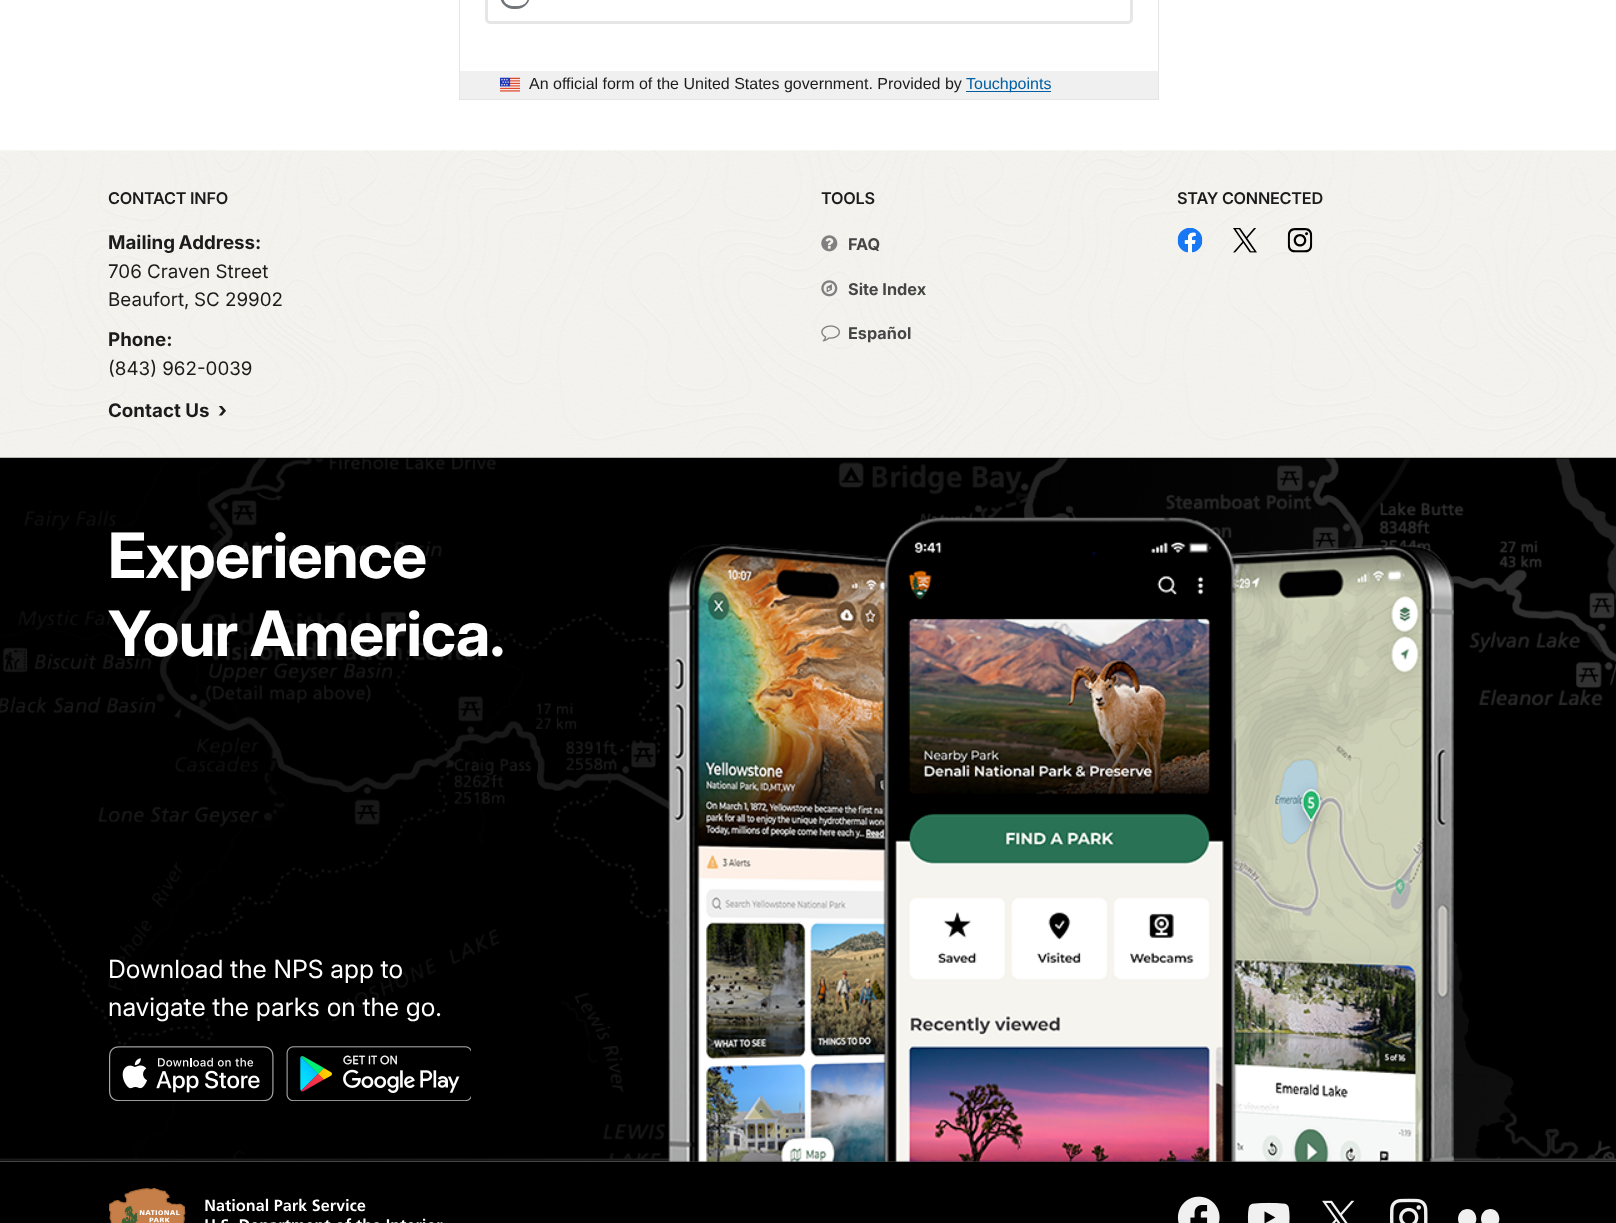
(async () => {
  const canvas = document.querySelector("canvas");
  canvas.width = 1616;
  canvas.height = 1223;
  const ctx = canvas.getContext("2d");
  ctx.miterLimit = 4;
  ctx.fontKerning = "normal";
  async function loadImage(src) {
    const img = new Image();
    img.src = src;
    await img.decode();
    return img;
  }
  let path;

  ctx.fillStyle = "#ffffff";
  ctx.fillRect(0, 0, 1616, 1223);
  ctx.strokeStyle = "#e5e5e5";
  ctx.strokeRect(459.5, -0.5, 699, 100);
  ctx.beginPath();
  ctx.roundRect(486.5, -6.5, 645, 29, 3.5);
  ctx.strokeStyle = "#e6e6e6";
  ctx.lineWidth = 3;
  ctx.stroke();
  ctx.beginPath();
  ctx.roundRect(501.5, -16.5, 27, 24, 13.5);
  ctx.strokeStyle = "#71767a";
  ctx.stroke();
  ctx.beginPath();
  ctx.roundRect(503, -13, 25, 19, 12.5);
  ctx.fill();
  ctx.fillStyle = "#f0f0f0";
  ctx.fillRect(460, 71, 698, 28);
  ctx.drawImage(await loadImage("img/1.png"), 500, 77, 20, 15);
  ctx.fillStyle = "#005ea2";
  ctx.fillRect(966, 91, 85, 1);
  ctx.drawImage(await loadImage("img/2.png"), 0, 150, 1616, 308);
  ctx.drawImage(await loadImage("img/3.png"), 821, 235, 17, 17);
  ctx.drawImage(await loadImage("img/4.png"), 821, 280, 17, 17);
  ctx.drawImage(await loadImage("img/5.png"), 821, 325, 19, 17);
  ctx.drawImage(await loadImage("img/6.png"), 1177, 228, 26, 25);
  ctx.drawImage(await loadImage("img/7.png"), 1233, 228, 24, 25);
  ctx.drawImage(await loadImage("img/8.png"), 1287, 228, 26, 25);
  ctx.fillStyle = "#000000";
  ctx.fillRect(0, 1160, 1616, 63);
  ctx.drawImage(await loadImage("img/9.png"), 0, 457, 1616, 704);
  ctx.fillStyle = "#454545";
  ctx.fillRect(0, 1161, 1616, 1);
  ctx.drawImage(await loadImage("img/10.png"), 109, 1046, 165, 55);
  ctx.drawImage(await loadImage("img/11.png"), 286, 1046, 185, 55);
  ctx.drawImage(await loadImage("img/12.png"), 668, 517, 786, 645);
  ctx.drawImage(await loadImage("img/13.png"), 109, 1188, 334, 35);
  ctx.drawImage(await loadImage("img/14.png"), 1177, 1196, 43, 27);
  ctx.drawImage(await loadImage("img/15.png"), 1247, 1202, 43, 21);
  ctx.drawImage(await loadImage("img/16.png"), 1322, 1200, 33, 23);
  ctx.drawImage(await loadImage("img/17.png"), 1390, 1198, 38, 25);
  ctx.fillStyle = "#f0f0f0";
  path = new Path2D("M1467 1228C1455 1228 1455 1210 1467 1209C1479 1209 1480 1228 1467 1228M1490 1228C1478 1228 1478 1210 1490 1209C1502 1209 1503 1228 1490 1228");
  ctx.fill(path);
  ctx.font = "16px Liberation Sans";
  ctx.fillStyle = "#1b1b1b";
  ctx.fillText("An official form of the United States government. Provided by", 529, 89);
  ctx.fillStyle = "#005ea2";
  ctx.fillText("Touchpoints", 966, 89);
  ctx.letterSpacing = "-0.25px";
  ctx.font = "600 16.25px Inter";
  ctx.fillStyle = "#1b1b1b";
  ctx.fillText("CONTACT INFO", 108, 204);
  ctx.letterSpacing = "0px";
  ctx.wordSpacing = "-1px";
  ctx.font = "bold 18.75px Inter";
  ctx.fillText("Mailing Address:", 108, 249);
  ctx.wordSpacing = "0px";
  ctx.font = "18.75px Inter";
  for (const [text, x, y] of [
    ["706 Craven Street", 108, 278],
    ["Beaufort,", 108, 306],
    ["SC 29902", 194, 306],
  ]) {
    ctx.fillText(text, x, y);
  }
  ctx.font = "bold 18.75px Inter";
  ctx.fillText("Phone:", 108, 346);
  ctx.font = "18.75px Inter";
  ctx.fillText("(843) 962-0039", 108, 375);
  ctx.font = "bold 18.75px Inter";
  ctx.fillText("Contact Us", 108, 417);
  ctx.font = "bold 21px 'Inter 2'";
  ctx.fillText("›", 218, 417);
  ctx.letterSpacing = "-0.25px";
  ctx.font = "600 16.25px Inter";
  ctx.fillText("TOOLS", 821, 204);
  ctx.letterSpacing = "0px";
  ctx.font = "bold 16.25px Inter";
  ctx.fillStyle = "#454545";
  for (const [text, x, y] of [
    ["FAQ", 848, 250],
    ["Site Index", 848, 295],
    ["Español", 848, 339],
  ]) {
    ctx.fillText(text, x, y);
  }
  ctx.letterSpacing = "-0.25px";
  ctx.font = "600 16.25px Inter";
  ctx.fillStyle = "#1b1b1b";
  ctx.fillText("STAY CONNECTED", 1177, 204);
  ctx.letterSpacing = "-0.6px";
  ctx.font = "bold 62.5px 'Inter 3'";
  ctx.fillStyle = "#ffffff";
  ctx.fillText("Experience", 108, 578);
  ctx.fillText("Your America.", 108, 656);
  ctx.letterSpacing = "0px";
  ctx.font = "25px 'Inter 2'";
  ctx.fillText("Download the NPS app to", 108, 978);
  ctx.fillText("navigate the parks on the go.", 108, 1016);
})();
